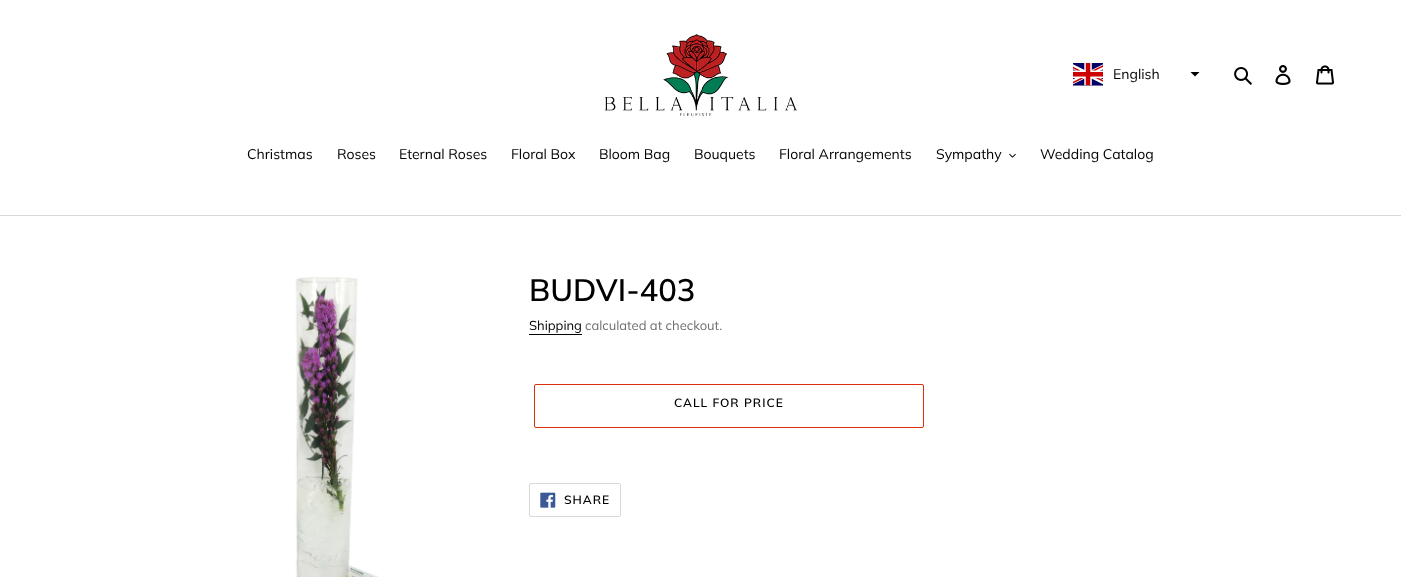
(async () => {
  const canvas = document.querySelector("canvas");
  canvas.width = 1401;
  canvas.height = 577;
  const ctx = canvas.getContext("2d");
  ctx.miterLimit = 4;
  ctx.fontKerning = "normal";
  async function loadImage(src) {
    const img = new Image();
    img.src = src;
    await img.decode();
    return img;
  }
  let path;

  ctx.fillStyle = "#ffffff";
  ctx.fillRect(0, 0, 1401, 577);
  ctx.drawImage(await loadImage("img/1.png"), 604, 34, 193, 83);
  ctx.drawImage(await loadImage("img/2.png"), 1073, 63, 30, 23);
  ctx.save();
  ctx.beginPath();
  ctx.rect(1190, 72, 10, 5);
  ctx.clip();
  ctx.fillStyle = "#000000";
  path = new Path2D("M1200 71.5L1195 76.5L1190 71.5Z");
  ctx.fill(path, "evenodd");
  ctx.restore();
  ctx.drawImage(await loadImage("img/3.png"), 1234, 67, 18, 18);
  ctx.drawImage(await loadImage("img/4.png"), 1275, 65, 16, 20);
  ctx.drawImage(await loadImage("img/5.png"), 1316, 65, 18, 20);
  ctx.fillStyle = "#d8d8d8";
  ctx.fillRect(0, 215, 1401, 1);
  ctx.drawImage(await loadImage("img/6.png"), 1009, 153, 7, 5);
  ctx.drawImage(await loadImage("img/7.png"), 295, 277, 84, 300);
  ctx.fillStyle = "#000000";
  ctx.fillRect(529, 334, 53, 1);
  ctx.beginPath();
  ctx.roundRect(534.5, 384.5, 389, 43, 1.5);
  ctx.strokeStyle = "#da2f0c";
  ctx.stroke();
  ctx.beginPath();
  ctx.roundRect(529.5, 483.5, 91, 33, 1.5);
  ctx.strokeStyle = "#d8d8d8";
  ctx.stroke();
  ctx.drawImage(await loadImage("img/8.png"), 540, 492, 16, 16);
  ctx.font = "14px Muli";
  for (const [text, x, y] of [
    ["English", 1113, 79],
    ["Christmas", 247, 159],
    ["Roses", 337, 159],
    ["Eternal Roses", 399, 159],
    ["Floral Box", 511, 159],
    ["Bloom Bag", 599, 159],
    ["Bouquets", 694, 159],
    ["Floral Arrangements", 779, 159],
    ["Sympathy", 936, 159],
    ["Wedding Catalog", 1040, 159],
  ]) {
    ctx.fillText(text, x, y);
  }
  ctx.font = "600 31px Muli";
  ctx.fillText("BUDVI-403", 529, 301);
  ctx.font = "13px Muli";
  ctx.fillText("Shipping", 529, 330);
  ctx.fillStyle = "#6d6d6d";
  ctx.fillText("calculated at checkout.", 585, 330);
  ctx.letterSpacing = "1px";
  ctx.font = "600 12px Muli";
  ctx.fillStyle = "#000000";
  ctx.fillText("CALL FOR PRICE", 674, 407);
  ctx.fillText("SHARE", 564, 504);
})();
